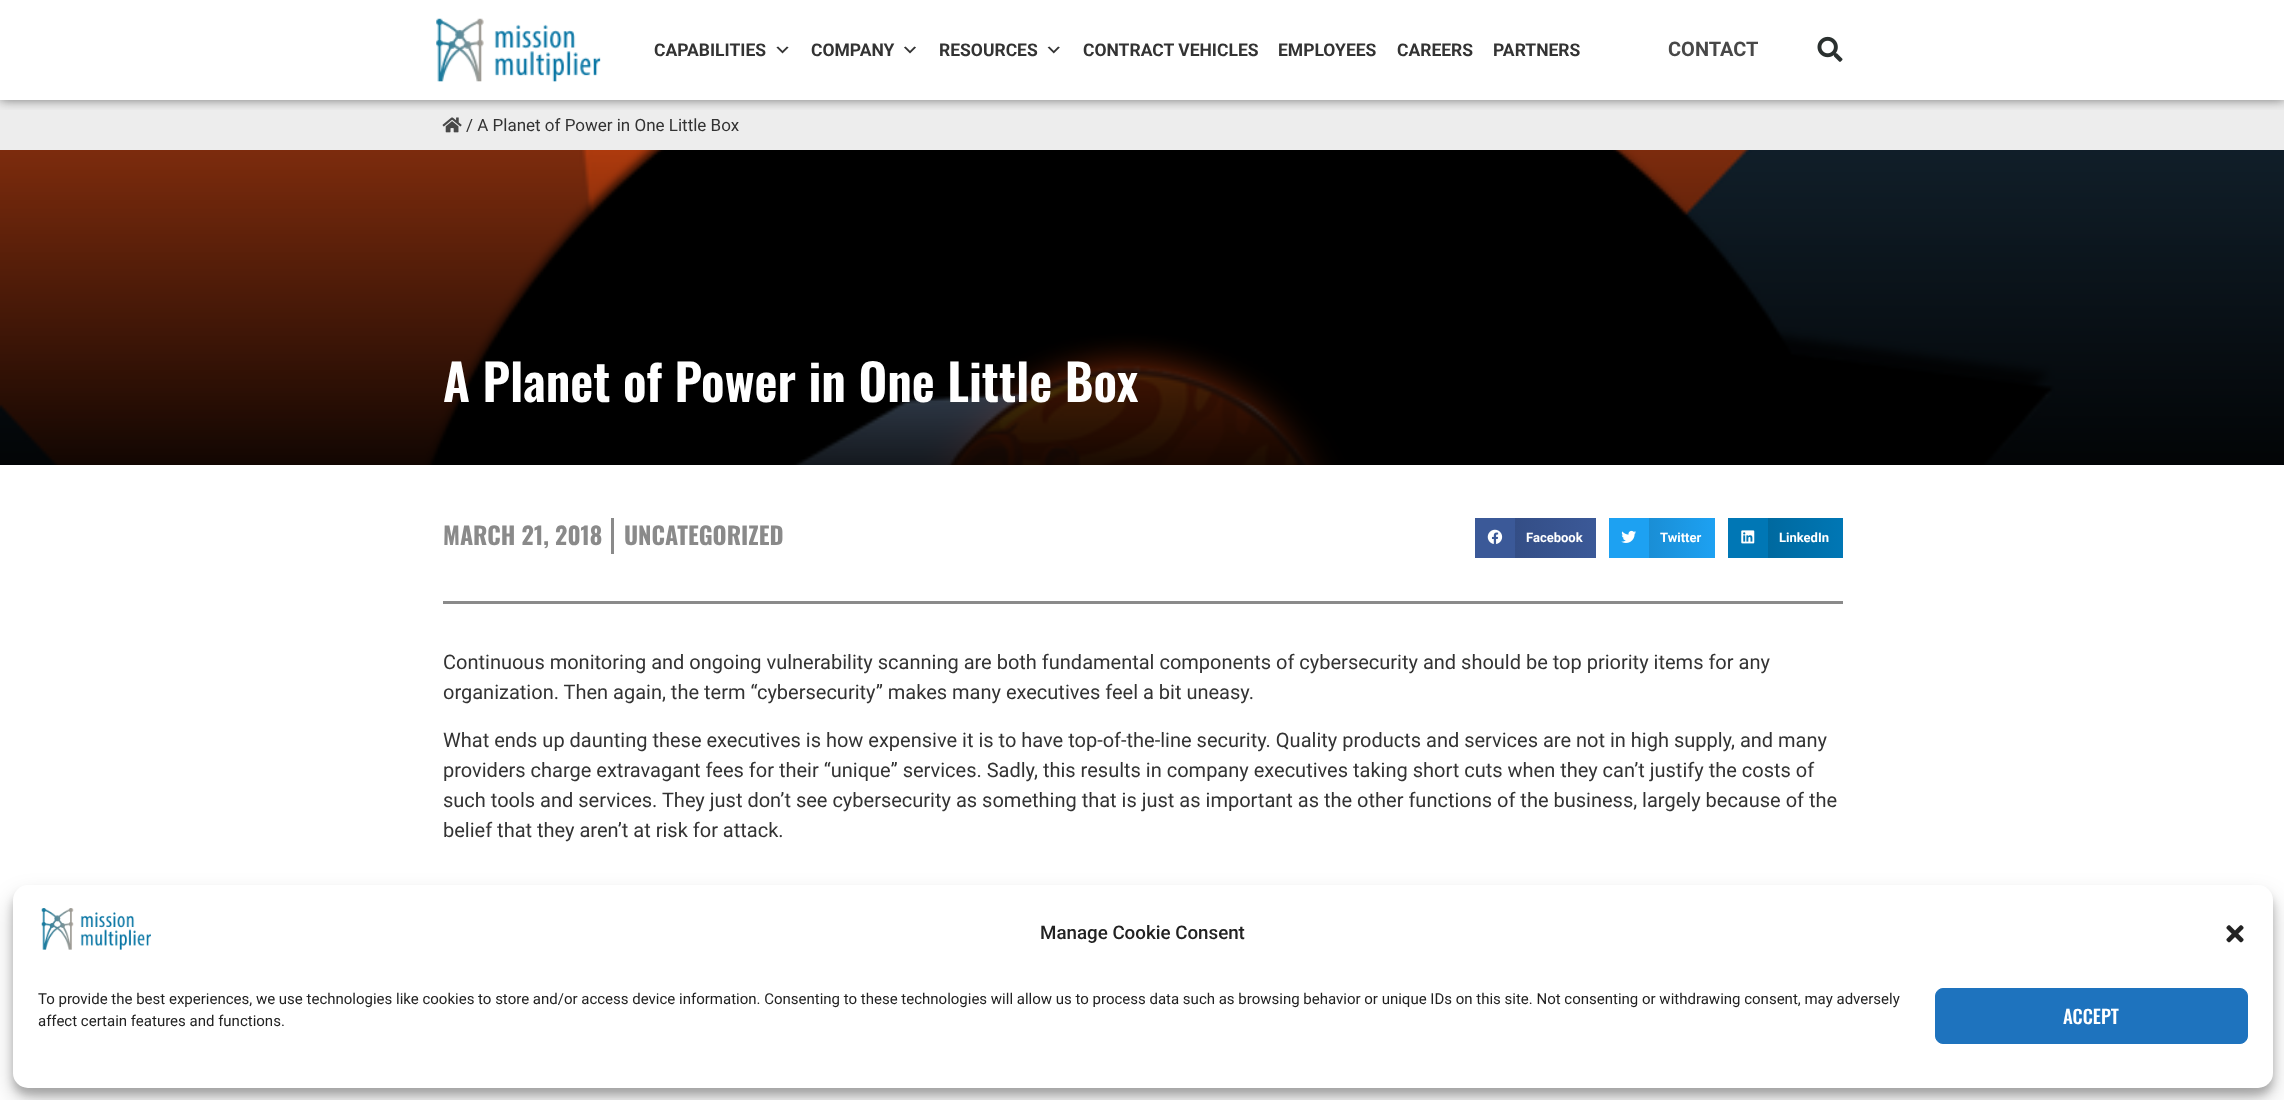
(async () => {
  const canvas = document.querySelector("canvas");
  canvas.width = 2284;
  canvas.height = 1100;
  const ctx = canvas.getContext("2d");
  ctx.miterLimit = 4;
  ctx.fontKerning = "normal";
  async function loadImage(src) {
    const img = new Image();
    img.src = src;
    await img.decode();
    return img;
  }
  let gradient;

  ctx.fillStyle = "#ffffff";
  ctx.fillRect(0, 0, 2284, 1100);
  ctx.fillStyle = "#ededed";
  ctx.fillRect(0, 100, 2284, 50);
  ctx.drawImage(await loadImage("img/6.png"), 442, 117, 20, 16);
  ctx.save();
  ctx.beginPath();
  ctx.rect(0, 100, 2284, 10);
  ctx.clip();
  ctx.fillStyle = "rgba(0, 0, 0, 0.5)";
  ctx.filter = "blur(6px)";
  ctx.beginPath();
  ctx.rect(0, 0, 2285, 100);
  ctx.fill();
  ctx.filter = "none";
  ctx.restore();
  ctx.drawImage(await loadImage("img/1.png"), 436, 18, 165, 64);
  ctx.drawImage(await loadImage("img/2.png"), 776, 46, 13, 8);
  ctx.drawImage(await loadImage("img/3.png"), 904, 46, 12, 8);
  ctx.drawImage(await loadImage("img/4.png"), 1047, 46, 13, 8);
  ctx.drawImage(await loadImage("img/5.png"), 1817, 36, 26, 26);
  ctx.drawImage(await loadImage("img/7.png"), 0, 150, 2284, 315);
  ctx.fillStyle = "#8a8a8a";
  ctx.fillRect(611, 518, 3, 36);
  ctx.fillStyle = "#3b5998";
  ctx.fillRect(1475, 518, 40, 40);
  ctx.drawImage(await loadImage("img/8.png"), 1487, 529, 16, 15);
  gradient = ctx.createLinearGradient(1515, 538, 1596, 538);
  gradient.addColorStop(0, "#344e86");
  gradient.addColorStop(1, "#3b5998");
  ctx.fillStyle = gradient;
  ctx.fillRect(1515, 518, 81, 40);
  ctx.fillStyle = "#1da1f2";
  ctx.fillRect(1609, 518, 40, 40);
  ctx.drawImage(await loadImage("img/9.png"), 1621, 530, 15, 13);
  gradient = ctx.createLinearGradient(1649, 538, 1715, 538);
  gradient.addColorStop(0, "#1a8ed5");
  gradient.addColorStop(1, "#1da1f2");
  ctx.fillStyle = gradient;
  ctx.fillRect(1649, 518, 66, 40);
  ctx.fillStyle = "#0077b5";
  ctx.fillRect(1728, 518, 40, 40);
  ctx.drawImage(await loadImage("img/10.png"), 1741, 530, 14, 14);
  gradient = ctx.createLinearGradient(1768, 538, 1843, 538);
  gradient.addColorStop(0, "#00699f");
  gradient.addColorStop(1, "#0077b5");
  ctx.fillStyle = gradient;
  ctx.fillRect(1768, 518, 75, 40);
  ctx.fillStyle = "#8a8a8a";
  ctx.fillRect(443, 601, 1400, 3);
  ctx.fillStyle = "rgba(0, 0, 0, 0.23)";
  ctx.filter = "blur(4px)";
  ctx.beginPath();
  ctx.roundRect(13, 893, 2260, 202, 15);
  ctx.fill();
  ctx.filter = "none";
  ctx.fillStyle = "rgba(0, 0, 0, 0.19)";
  ctx.filter = "blur(12.5px)";
  ctx.beginPath();
  ctx.roundRect(13, 898, 2260, 202, 15);
  ctx.fill();
  ctx.filter = "none";
  ctx.fillStyle = "#ffffff";
  ctx.beginPath();
  ctx.roundRect(13, 885, 2260, 203, 15);
  ctx.fill();
  ctx.drawImage(await loadImage("img/11.png"), 41, 908, 110, 42);
  ctx.drawImage(await loadImage("img/12.png"), 2226, 925, 18, 18);
  ctx.fillStyle = "#1e73be";
  ctx.beginPath();
  ctx.roundRect(1935.5, 988.5, 312, 55, 7.5);
  ctx.fill();
  ctx.strokeStyle = "#1e73be";
  ctx.stroke();
  ctx.font = "bold 17.5px Roboto";
  ctx.fillStyle = "#333333";
  for (const [text, x, y] of [
    ["CAPABILITIES", 654, 56],
    ["COMPANY", 811, 56],
    ["RESOURCES", 939, 56],
    ["CONTRACT VEHICLES", 1083, 56],
    ["EMPLOYEES", 1278, 56],
    ["CAREERS", 1397, 56],
    ["PARTNERS", 1493, 56],
  ]) {
    ctx.fillText(text, x, y);
  }
  ctx.font = "bold 20px Roboto";
  ctx.fillStyle = "#484848";
  ctx.fillText("CONTACT", 1668, 56);
  ctx.font = "17px Roboto";
  ctx.fillStyle = "#333333";
  ctx.fillText("/ A Planet of Power in One Little Box", 466, 131);
  ctx.font = "600 50px Oswald";
  ctx.fillStyle = "#ffffff";
  ctx.fillText("A Planet of Power in One Little Box", 443, 402);
  ctx.font = "bold 24px Oswald";
  ctx.fillStyle = "#8a8a8a";
  ctx.fillText("MARCH 21, 2018", 443, 545);
  ctx.fillText("UNCATEGORIZED", 624, 545);
  ctx.font = "bold 13px Roboto";
  ctx.fillStyle = "#ffffff";
  for (const [text, x, y] of [
    ["Facebook", 1526, 542],
    ["Twitter", 1660, 542],
    ["LinkedIn", 1779, 542],
  ]) {
    ctx.fillText(text, x, y);
  }
  ctx.font = "20px Roboto";
  ctx.fillStyle = "#333333";
  for (const [text, x, y] of [
    ["Continuous monitoring and ongoing vulnerability scanning are both fundamental components of cybersecurity and should be top priority items for any", 443, 669],
    ["organization. Then again, the term “cybersecurity” makes many executives feel a bit uneasy.", 443, 699],
    ["What ends up daunting these executives is how expensive it is to have top-of-the-line security. Quality products and services are not in high supply, and many", 443, 747],
    ["providers charge extravagant fees for their “unique” services. Sadly, this results in company executives taking short cuts when they can’t justify the costs of", 443, 777],
    ["such tools and services. They just don’t see cybersecurity as something that is just as important as the other functions of the business, largely because of the", 443, 807],
    ["belief that they aren’t at risk for attack.", 443, 837],
  ]) {
    ctx.fillText(text, x, y);
  }
  ctx.font = "500 18.75px Roboto";
  ctx.fillStyle = "#222222";
  ctx.fillText("Manage Cookie Consent", 1040, 939);
  ctx.font = "15px Roboto";
  ctx.fillText("To provide the best experiences, we use technologies like cookies to store and/or access device information. Consenting to these technologies will allow us to process data such as browsing behavior or unique IDs on this site. Not consenting or withdrawing consent, may adversely", 38, 1004);
  ctx.fillText("affect certain features and functions.", 38, 1026);
  ctx.font = "500 18.75px Oswald";
  ctx.fillStyle = "#ffffff";
  ctx.fillText("ACCEPT", 2063, 1024);
})();
